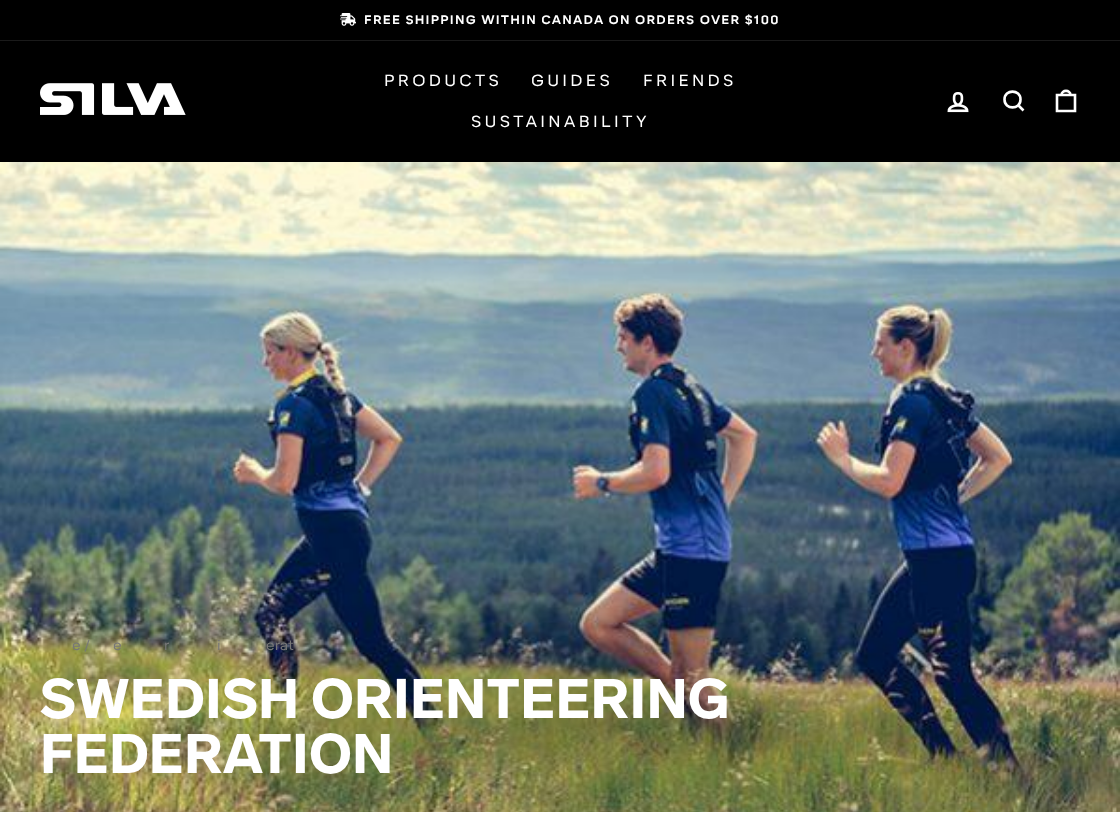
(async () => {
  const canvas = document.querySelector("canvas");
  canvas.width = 1120;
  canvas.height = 829;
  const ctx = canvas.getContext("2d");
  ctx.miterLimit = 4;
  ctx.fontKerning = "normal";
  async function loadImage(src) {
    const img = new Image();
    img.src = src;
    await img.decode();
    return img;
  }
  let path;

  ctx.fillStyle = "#ffffff";
  ctx.fillRect(0, 0, 1120, 829);
  ctx.fillStyle = "#000000";
  ctx.fillRect(0, 0, 1120, 40);
  ctx.drawImage(await loadImage("img/1.png"), 340, 13, 16, 13);
  ctx.fillRect(0, 41, 1120, 121);
  ctx.fillStyle = "#1a1a1a";
  ctx.fillRect(0, 40, 1120, 1);
  ctx.drawImage(await loadImage("img/2.png"), 40, 83, 146, 32);
  ctx.drawImage(await loadImage("img/3.png"), 947, 92, 22, 21);
  path = new Path2D("M1020.5 99.5C1020.5 110 1004.5 110 1004.5 99.5C1004.5 89 1020.5 89 1020.5 99.5ZM1023.5 110.5L1018.5 105.5");
  ctx.strokeStyle = "#ffffff";
  ctx.lineWidth = 2.6;
  ctx.stroke(path);
  path = new Path2D("M1057 95H1075V111H1057ZM1061.5 95C1061.5 89.5 1070.5 89.5 1070.5 95");
  ctx.stroke(path);
  ctx.drawImage(await loadImage("img/4.png"), 0, 162, 1120, 650);
  ctx.letterSpacing = "1.2px";
  ctx.font = "bold 12.25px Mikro";
  ctx.fillStyle = "#ffffff";
  ctx.fillText("FREE SHIPPING WITHIN CANADA ON ORDERS OVER $100", 364, 24);
  ctx.letterSpacing = "3.25px";
  ctx.font = "16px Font";
  for (const [text, x, y] of [
    ["PRODUCTS", 384, 86],
    ["GUIDES", 531, 86],
    ["FRIENDS", 643, 86],
    ["SUSTAINABILITY", 471, 127],
  ]) {
    ctx.fillText(text, x, y);
  }
  ctx.letterSpacing = "0px";
  ctx.font = "14px Font";
  ctx.fillStyle = "#777777";
  for (const [text, x, y] of [
    ["e /", 72, 650],
    ["e", 113, 650],
    ["r", 164, 650],
    ["i", 217, 650],
    ["erat", 266, 650],
  ]) {
    ctx.fillText(text, x, y);
  }
  ctx.font = "900 55.1px Font";
  ctx.fillStyle = "#ffffff";
  ctx.fillText("SWEDISH ORIENTEERING", 40, 718);
  ctx.fillText("FEDERATION", 40, 773);
})();
